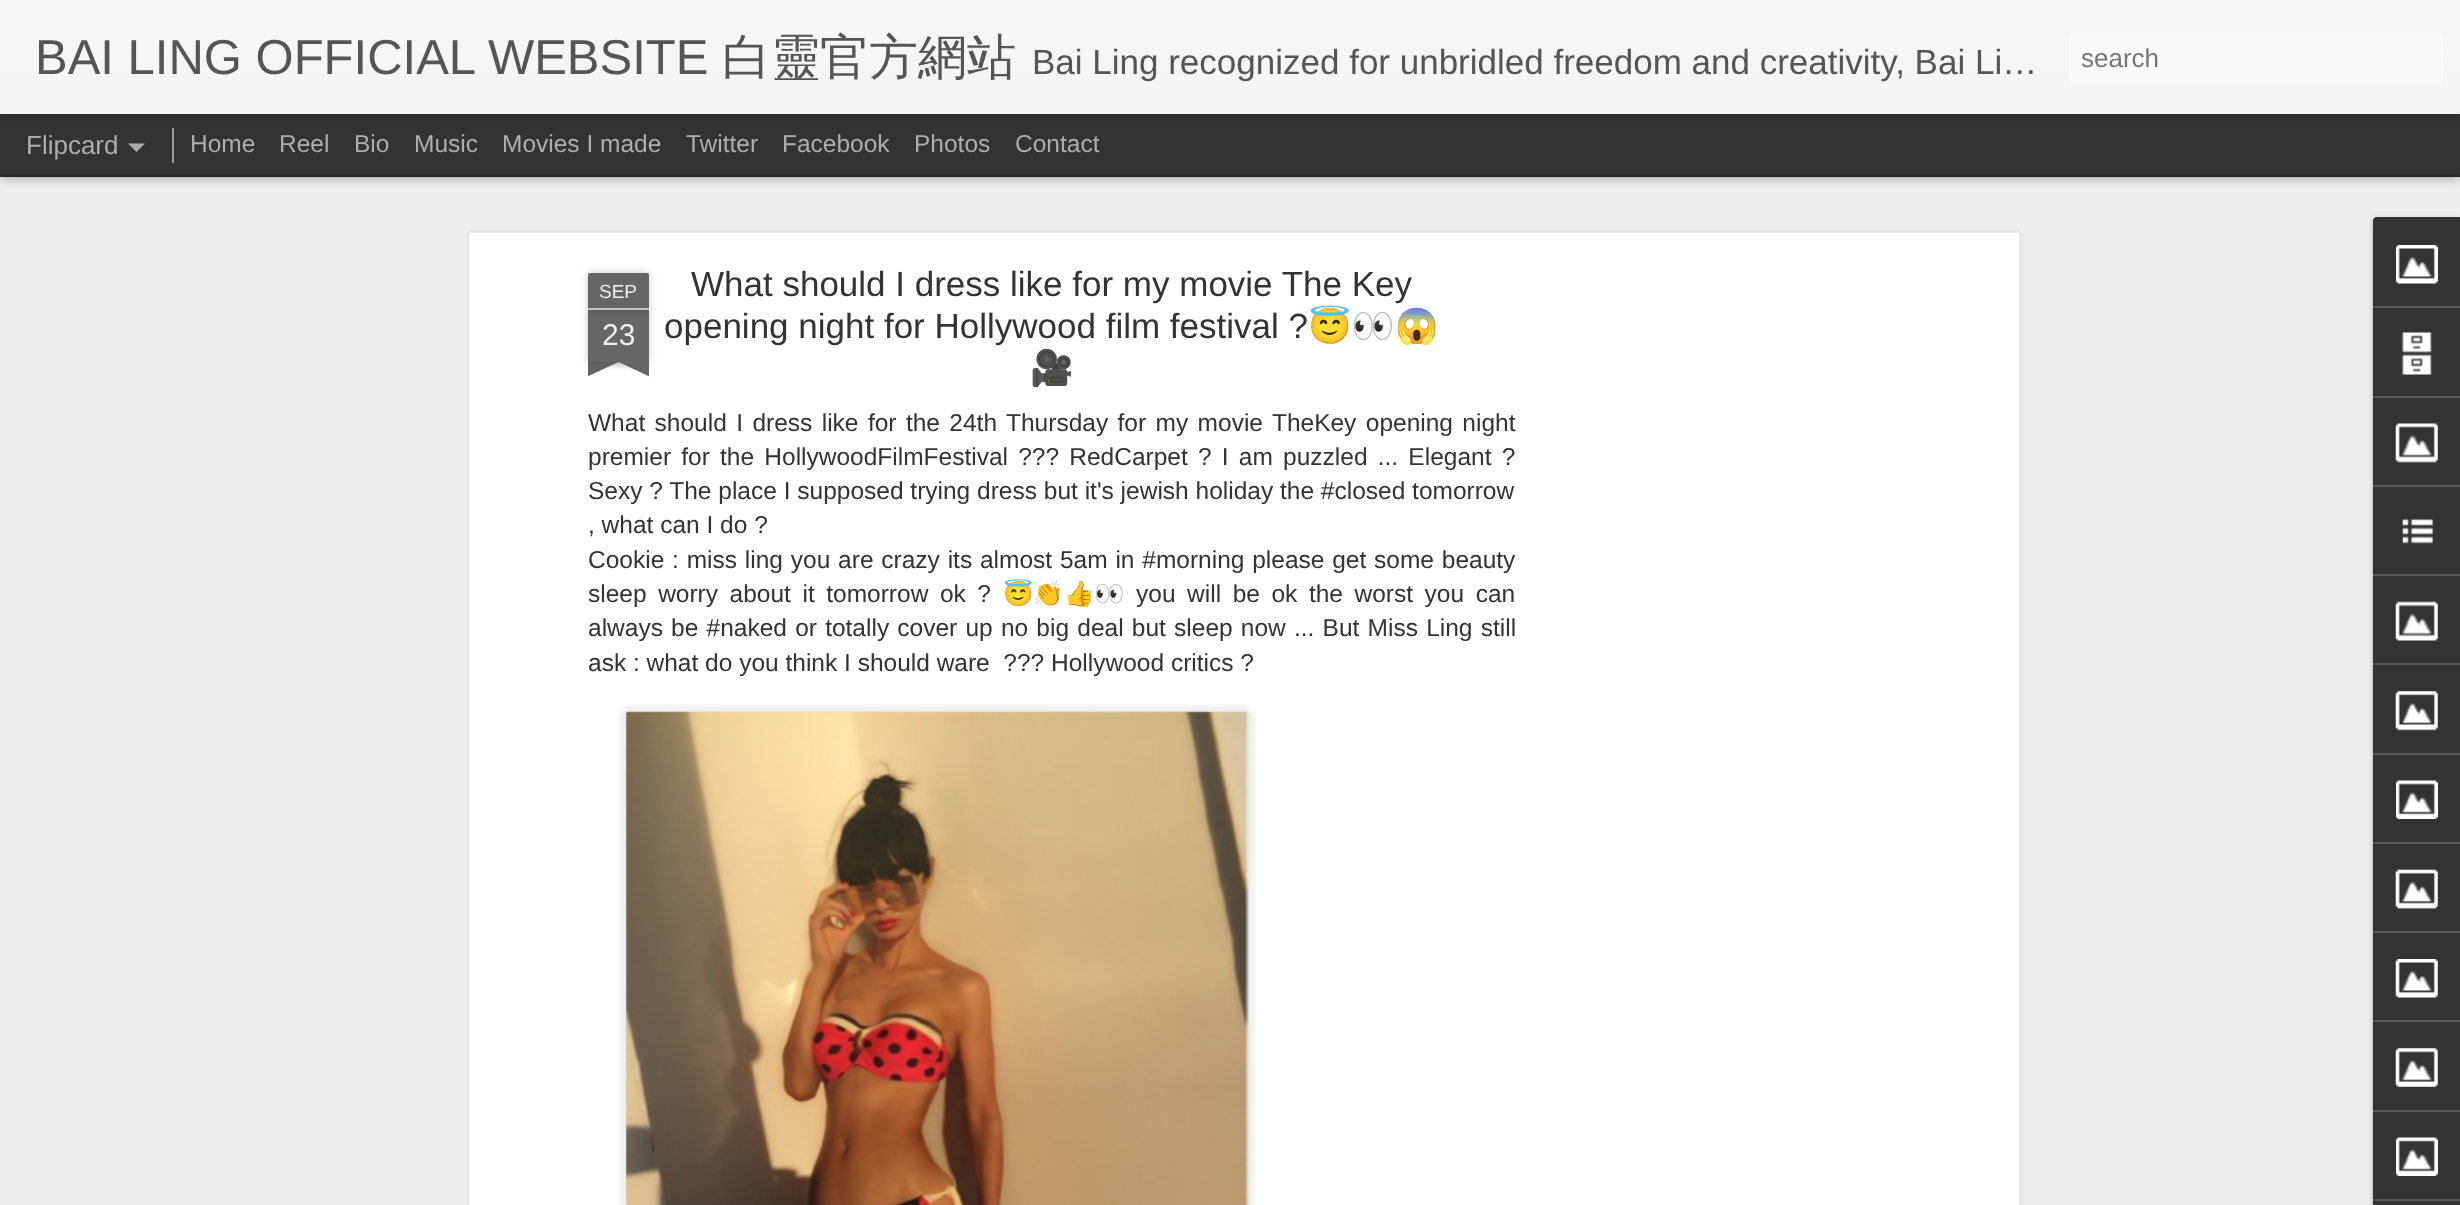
(async () => {
  const canvas = document.querySelector("canvas");
  canvas.width = 2460;
  canvas.height = 1205;
  const ctx = canvas.getContext("2d");
  ctx.miterLimit = 4;
  ctx.fontKerning = "normal";
  async function loadImage(src) {
    const img = new Image();
    img.src = src;
    await img.decode();
    return img;
  }
  let gradient, path;

  ctx.fillStyle = "#333333";
  ctx.fillRect(0, 0, 2460, 1205);
  ctx.fillStyle = "#eeeeee";
  ctx.fillRect(0, 177, 2460, 1028);
  ctx.fillStyle = "rgba(0, 0, 0, 0.5)";
  ctx.filter = "blur(7px)";
  ctx.beginPath();
  ctx.rect(0, 114, 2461, 61);
  ctx.fill();
  ctx.filter = "none";
  ctx.fillStyle = "#333333";
  ctx.fillRect(0, 114, 2460, 61);
  ctx.fillStyle = "#999999";
  ctx.fillRect(172, 128, 2, 35);
  ctx.fillStyle = "rgba(0, 0, 0, 0.3)";
  ctx.filter = "blur(4.5px)";
  ctx.beginPath();
  ctx.rect(0, 0, 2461, 114);
  ctx.fill();
  ctx.filter = "none";
  gradient = ctx.createLinearGradient(0, 0, 0, 114);
  gradient.addColorStop(0, "#f7f7f7");
  gradient.addColorStop(1, "#f4f4f4");
  ctx.fillStyle = gradient;
  ctx.fillRect(0, 0, 2460, 114);
  ctx.fillStyle = "#fafafa";
  ctx.beginPath();
  ctx.roundRect(2069, 32, 374, 52, 5);
  ctx.fill();
  ctx.fillStyle = "#adadad";
  path = new Path2D("M128 143.5H145L136.5 152Z");
  ctx.fill(path);
  ctx.fillStyle = "#ffffff";
  ctx.fillRect(466, 229, 1557, 976);
  ctx.drawImage(await loadImage("img/1.png"), 466, 229, 1558, 976);
  ctx.fillStyle = "rgba(0, 0, 0, 0.2)";
  ctx.filter = "blur(4.5px)";
  ctx.beginPath();
  ctx.rect(588, 310, 61, 52);
  ctx.fill();
  ctx.filter = "none";
  ctx.fillStyle = "#666666";
  ctx.fillRect(588, 310, 61, 52);
  ctx.fillStyle = "rgba(0, 0, 0, 0.2)";
  ctx.filter = "blur(4.5px)";
  ctx.beginPath();
  ctx.roundRect(588, 273, 61, 37, 2);
  ctx.fill();
  ctx.filter = "none";
  ctx.fillStyle = "#666666";
  ctx.beginPath();
  ctx.roundRect(588, 273, 61, 37, [2, 2, 0, 0]);
  ctx.fill();
  ctx.fillStyle = "#c2c2c2";
  ctx.fillRect(588, 308, 61, 2);
  ctx.save();
  ctx.beginPath();
  ctx.rect(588, 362, 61, 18);
  ctx.clip();
  ctx.fillStyle = "rgba(0, 0, 0, 0.2)";
  ctx.filter = "blur(4.5px)";
  ctx.beginPath();
  ctx.rect(572, 345, 88, 17);
  ctx.fill();
  ctx.filter = "none";
  ctx.restore();
  ctx.save();
  ctx.beginPath();
  ctx.rect(588, 362, 61, 18);
  ctx.clip();
  ctx.fillStyle = "#666666";
  path = new Path2D("M573 364L652 327L659 343L580 380Z");
  ctx.fill(path);
  ctx.restore();
  ctx.save();
  ctx.beginPath();
  ctx.rect(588, 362, 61, 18);
  ctx.clip();
  ctx.fillStyle = "rgba(0, 0, 0, 0.2)";
  ctx.filter = "blur(4.5px)";
  ctx.beginPath();
  ctx.rect(578, 345, 87, 17);
  ctx.fill();
  ctx.filter = "none";
  ctx.restore();
  ctx.save();
  ctx.beginPath();
  ctx.rect(588, 362, 61, 18);
  ctx.clip();
  ctx.fillStyle = "#666666";
  path = new Path2D("M585 327L665 364L657 380L578 343Z");
  ctx.fill(path);
  ctx.restore();
  ctx.drawImage(await loadImage("img/2.png"), 618, 704, 638, 501);
  ctx.drawImage(await loadImage("img/3.png"), 626, 711, 623, 494);
  ctx.fillStyle = "rgba(0, 0, 0, 0.3)";
  ctx.filter = "blur(2.5px)";
  ctx.beginPath();
  ctx.roundRect(2373, 219, 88, 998, 4);
  ctx.fill();
  ctx.filter = "none";
  ctx.fillStyle = "#333333";
  path = new Path2D("M2377 217H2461V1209H2377C2375 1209 2373 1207 2373 1205V221C2373 219 2375 217 2377 217Z");
  ctx.fill(path);
  path = new Path2D("M2377 217H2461V306H2373V221C2373 219 2375 217 2377 217Z");
  ctx.fill(path);
  ctx.drawImage(await loadImage("img/4.png"), 2396, 245, 42, 39);
  ctx.fillStyle = "#585858";
  ctx.fillRect(2373, 306, 87, 2);
  ctx.drawImage(await loadImage("img/5.png"), 2401, 332, 31, 43);
  ctx.fillRect(2373, 396, 87, 2);
  ctx.drawImage(await loadImage("img/6.png"), 2395, 423, 43, 40);
  ctx.fillRect(2373, 485, 87, 2);
  ctx.drawImage(await loadImage("img/7.png"), 2402, 519, 31, 25);
  ctx.fillRect(2373, 574, 87, 2);
  ctx.drawImage(await loadImage("img/8.png"), 2395, 601, 43, 40);
  ctx.fillRect(2373, 663, 87, 2);
  ctx.drawImage(await loadImage("img/9.png"), 2395, 691, 43, 40);
  ctx.fillRect(2373, 753, 87, 2);
  ctx.drawImage(await loadImage("img/10.png"), 2396, 780, 42, 39);
  ctx.fillRect(2373, 842, 87, 2);
  ctx.drawImage(await loadImage("img/11.png"), 2395, 869, 43, 40);
  ctx.fillRect(2373, 931, 87, 2);
  ctx.drawImage(await loadImage("img/12.png"), 2395, 959, 43, 39);
  ctx.fillRect(2373, 1020, 87, 2);
  ctx.drawImage(await loadImage("img/13.png"), 2395, 1048, 43, 39);
  ctx.fillRect(2373, 1110, 87, 2);
  ctx.drawImage(await loadImage("img/10.png"), 2396, 1137, 42, 39);
  ctx.fillRect(2373, 1199, 87, 2);
  ctx.font = "49px Liberation Sans";
  ctx.fillStyle = "#555555";
  ctx.fillText("BAI LING OFFICIAL WEBSITE", 35, 74);
  ctx.font = "500 49px WenQuanYi Zen Hei";
  ctx.fillText("白靈官方網站", 722, 74);
  ctx.font = "35px Liberation Sans";
  ctx.fillText("Bai Ling recognized for unbridled freedom and creativity, Bai Li…", 1032, 74);
  ctx.font = "26px Liberation Sans";
  ctx.fillStyle = "#757575";
  ctx.fillText("search", 2081, 67);
  ctx.fillStyle = "#adadad";
  ctx.fillText("Flipcard", 26, 154);
  ctx.font = "24.5px Liberation Sans";
  for (const [text, x, y] of [
    ["Home", 190, 152],
    ["Reel", 279, 152],
    ["Bio", 354, 152],
    ["Music", 414, 152],
    ["Movies I made", 502, 152],
    ["Twitter", 686, 152],
    ["Facebook", 782, 152],
    ["Photos", 914, 152],
    ["Contact", 1015, 152],
  ]) {
    ctx.fillText(text, x, y);
  }
  ctx.font = "19px Liberation Sans";
  ctx.fillStyle = "#eeeeee";
  ctx.fillText("SEP", 599, 298);
  ctx.font = "30px Liberation Sans";
  ctx.fillText("23", 602, 345);
  ctx.font = "35px Liberation Sans";
  ctx.fillStyle = "#333333";
  ctx.fillText("What should I dress like for my movie The Key", 691, 296);
  ctx.fillText("opening night for Hollywood film festival ?", 664, 338);
  ctx.font = "35px Noto Color Emoji";
  ctx.fillText("😇👀😱", 1308, 338);
  ctx.fillText("🎥", 1030, 380);
  ctx.wordSpacing = "2.6px";
  ctx.font = "24.5px Liberation Sans";
  ctx.fillText("What should I dress like for the 24th Thursday for my movie TheKey opening night", 588, 431);
  ctx.wordSpacing = "3.4px";
  ctx.fillText("premier for the HollywoodFilmFestival ??? RedCarpet ? I am puzzled ... Elegant ?", 588, 465);
  ctx.wordSpacing = "0px";
  ctx.fillText("Sexy ? The place I supposed trying dress but it's jewish holiday the #closed tomorrow", 588, 499);
  ctx.fillText(", what can I do ?", 588, 533);
  ctx.wordSpacing = "1px";
  ctx.fillText("Cookie : miss ling you are crazy its almost 5am in #morning please get some beauty", 588, 568);
  ctx.wordSpacing = "4.75px";
  ctx.fillText("sleep worry about it tomorrow ok ?", 588, 602);
  ctx.wordSpacing = "0px";
  ctx.font = "24.5px Noto Color Emoji";
  ctx.fillText("😇👏👍👀", 1003, 602);
  ctx.wordSpacing = "4.75px";
  ctx.font = "24.5px Liberation Sans";
  ctx.fillText("you will be ok the worst you can", 1136, 602);
  ctx.wordSpacing = "1.4px";
  ctx.fillText("always be #naked or totally cover up no big deal but sleep now ... But Miss Ling still", 588, 636);
  ctx.wordSpacing = "0px";
  ctx.fillText("ask : what do you think I should ware  ??? Hollywood critics ?", 588, 671);
})();
